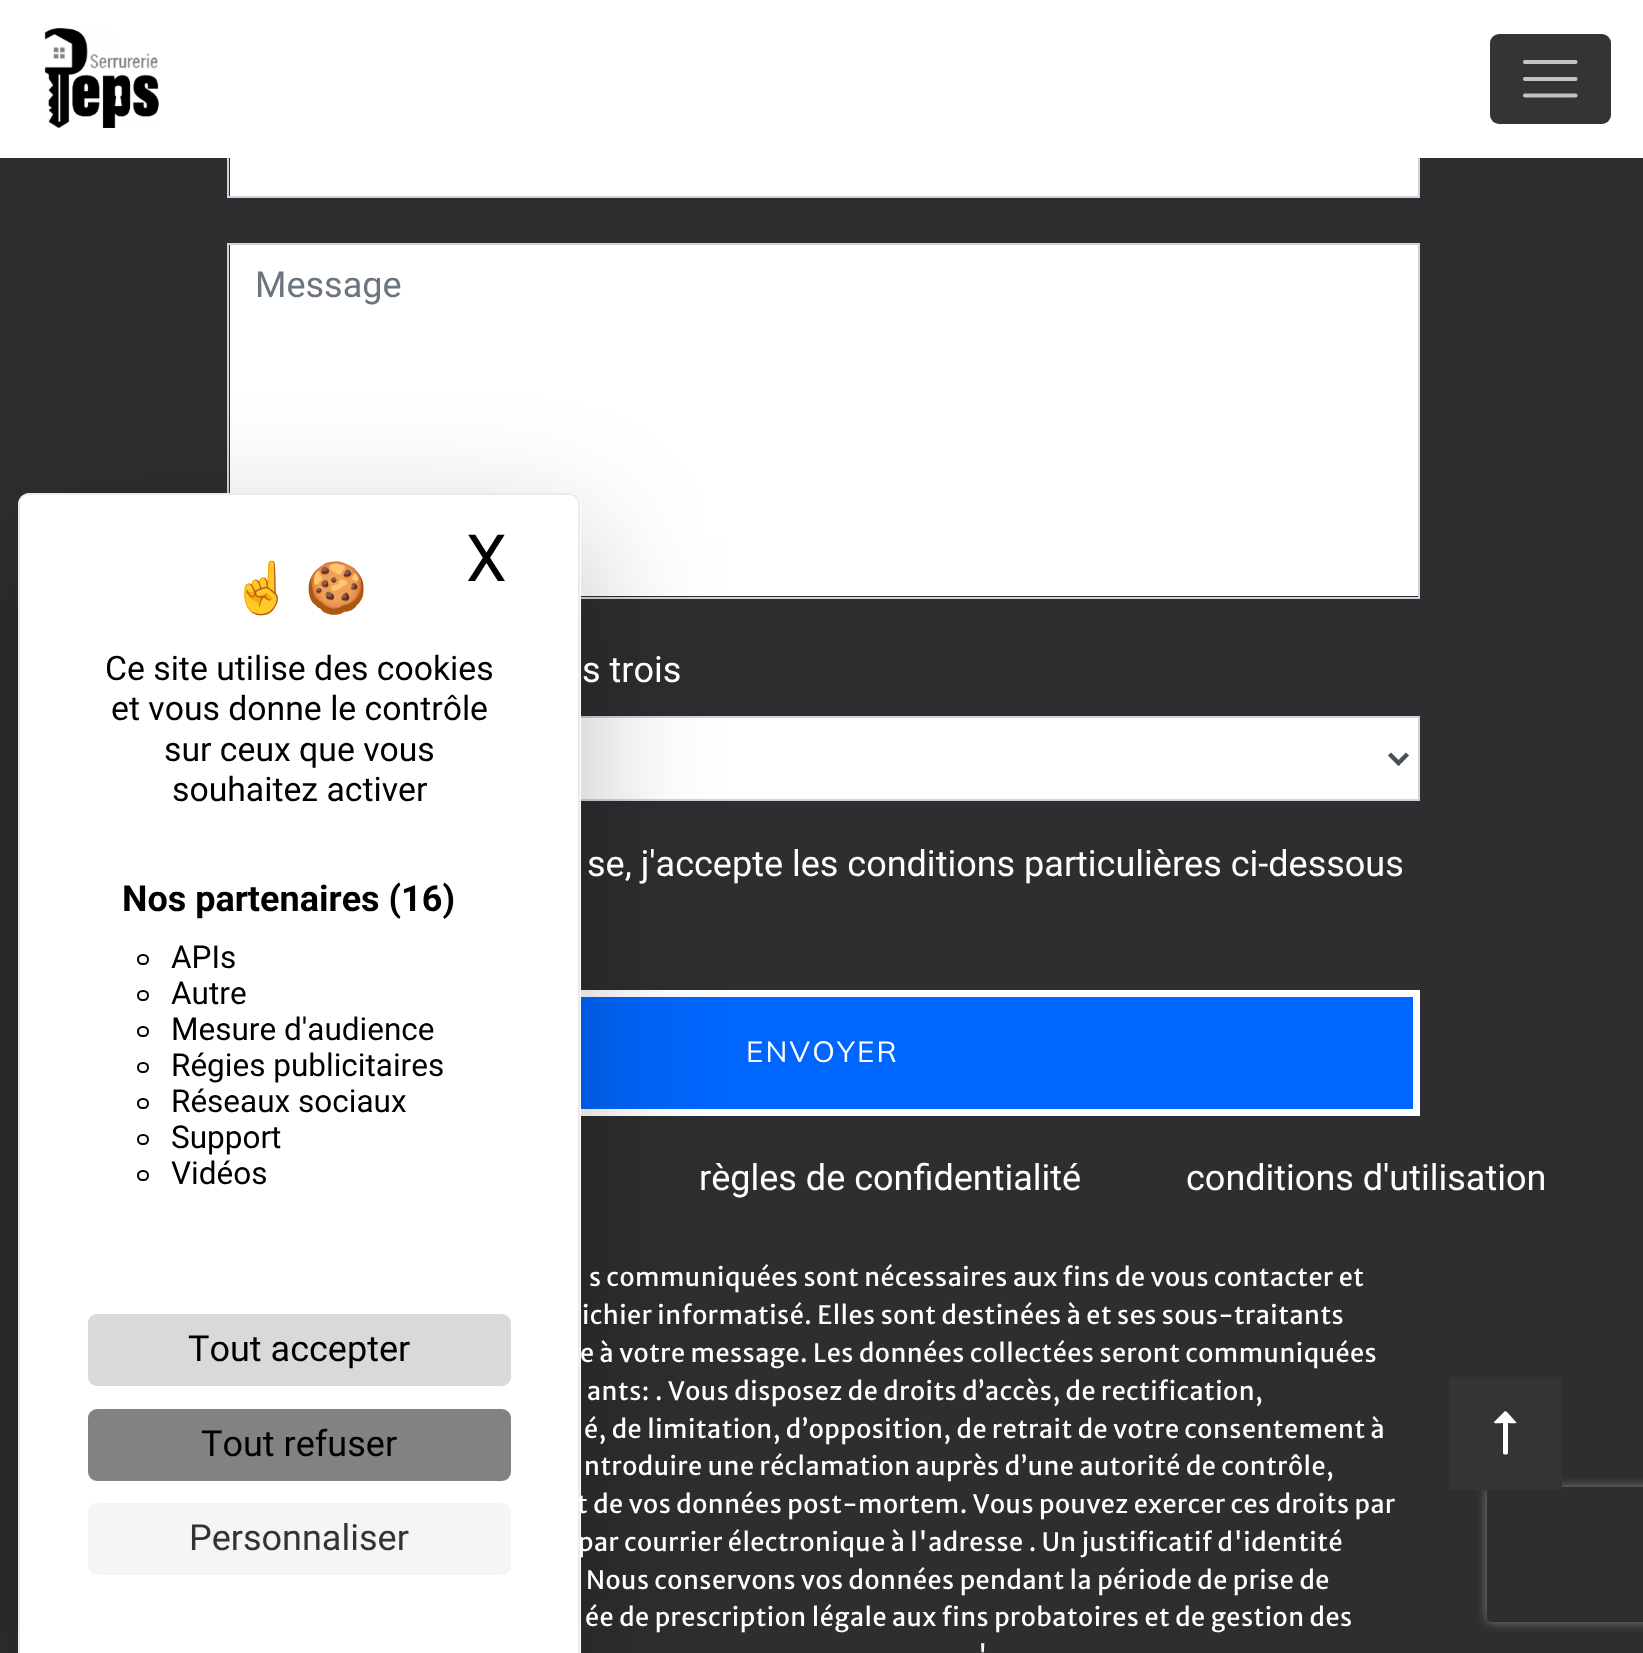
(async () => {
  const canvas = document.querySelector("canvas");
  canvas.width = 1643;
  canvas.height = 1653;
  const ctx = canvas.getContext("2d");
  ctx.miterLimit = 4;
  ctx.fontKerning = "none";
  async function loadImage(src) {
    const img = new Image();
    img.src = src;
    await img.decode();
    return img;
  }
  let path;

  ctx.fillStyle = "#2e2d30";
  ctx.fillRect(0, 0, 1643, 1653);
  ctx.fillStyle = "#ffffff";
  ctx.fillRect(230, 158, 1188, 38);
  ctx.strokeStyle = "#ced4da";
  ctx.lineWidth = 2;
  ctx.strokeRect(228, 114, 1191, 83);
  ctx.fillRect(0, 0, 1643, 158);
  ctx.drawImage(await loadImage("img/1.png"), 44, 28, 115, 100);
  ctx.fillStyle = "#343434";
  ctx.beginPath();
  ctx.roundRect(1490, 34, 121, 90, 9);
  ctx.fill();
  path = new Path2D("M1525 62H1575.5M1525 79H1575.5M1525 95.5H1575.5");
  ctx.strokeStyle = "#c4c4c4";
  ctx.lineWidth = 4.2;
  ctx.lineCap = "round";
  ctx.stroke(path);
  ctx.fillStyle = "#ffffff";
  ctx.fillRect(230, 245, 1188, 351);
  ctx.strokeStyle = "#ced4da";
  ctx.lineWidth = 2;
  ctx.strokeRect(228, 244, 1191, 354);
  ctx.fillRect(581, 718, 837, 81);
  ctx.strokeRect(228, 717, 1191, 83);
  path = new Path2D("M1389.5 754L1398.5 763L1407.5 754");
  ctx.strokeStyle = "#495057";
  ctx.lineWidth = 4.5;
  ctx.lineCap = "butt";
  ctx.stroke(path);
  ctx.fillStyle = "#0166fd";
  ctx.fillRect(581, 997, 832, 112);
  ctx.strokeStyle = "#ffffff";
  ctx.lineWidth = 7;
  ctx.strokeRect(230.5, 993.5, 1186, 119);
  ctx.save();
  path = new Path2D("M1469 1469H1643V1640H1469ZM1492 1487H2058C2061 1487 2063 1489 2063 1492V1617C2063 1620 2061 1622 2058 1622H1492C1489 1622 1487 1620 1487 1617V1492C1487 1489 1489 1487 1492 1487Z");
  ctx.clip(path, "evenodd");
  ctx.fillStyle = "#808080";
  ctx.filter = "blur(5.5px)";
  ctx.beginPath();
  ctx.roundRect(1487, 1487, 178, 135, 5);
  ctx.fill();
  ctx.filter = "none";
  ctx.restore();
  ctx.fillStyle = "#343434";
  ctx.fillRect(1449, 1377, 113, 113);
  ctx.fillStyle = "#ffffff";
  path = new Path2D("M1508 1453V1423C1509 1423 1519 1424 1516 1422L1507 1412L1505 1411L1504 1412L1494 1422C1492 1424 1501 1423 1503 1423V1453C1503 1455 1508 1455 1508 1453Z");
  ctx.fill(path);
  ctx.fillStyle = "rgba(0, 0, 0, 0.25)";
  ctx.filter = "blur(67.5px)";
  ctx.beginPath();
  ctx.roundRect(18, 538, 563, 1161, 11);
  ctx.fill();
  ctx.filter = "none";
  ctx.fillStyle = "#ffffff";
  path = new Path2D("M29 493H570C576 493 581 498 581 504V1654H18V504C18 498 23 493 29 493Z");
  ctx.fill(path);
  ctx.fillStyle = "rgba(0, 0, 0, 0.08)";
  path = new Path2D("M29 493H569C575 493 580 498 580 504V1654H18V504C18 498 23 493 29 493ZM29 495H569C574 495 578 499 578 504V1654H20V504C20 499 24 495 29 495Z");
  ctx.fill(path, "evenodd");
  ctx.beginPath();
  ctx.roundRect(138, 955, 10, 9, 4.5);
  ctx.strokeStyle = "#000000";
  ctx.lineWidth = 2;
  ctx.stroke();
  ctx.beginPath();
  ctx.roundRect(138, 991, 10, 9, 4.5);
  ctx.stroke();
  ctx.beginPath();
  ctx.roundRect(138, 1027, 10, 9, 4.5);
  ctx.stroke();
  ctx.beginPath();
  ctx.roundRect(138, 1063, 10, 9, 4.5);
  ctx.stroke();
  ctx.beginPath();
  ctx.roundRect(138, 1099, 10, 9, 4.5);
  ctx.stroke();
  ctx.beginPath();
  ctx.roundRect(138, 1135, 10, 9, 4.5);
  ctx.stroke();
  ctx.beginPath();
  ctx.roundRect(138, 1171, 10, 9, 4.5);
  ctx.stroke();
  ctx.fillStyle = "#d9d9d9";
  ctx.beginPath();
  ctx.roundRect(88, 1314, 423, 72, 9);
  ctx.fill();
  ctx.fillStyle = "#828282";
  ctx.beginPath();
  ctx.roundRect(88, 1409, 423, 72, 9);
  ctx.fill();
  ctx.fillStyle = "#f5f5f5";
  ctx.beginPath();
  ctx.roundRect(88, 1503, 423, 72, 9);
  ctx.fill();
  ctx.font = "36px Roboto";
  ctx.fillStyle = "#6c757d";
  ctx.fillText("Message", 255, 297);
  ctx.fillStyle = "#ffffff";
  ctx.fillText("s trois", 582, 682);
  ctx.fillText("se, j'accepte les conditions particulières ci-dessous", 587, 876);
  ctx.letterSpacing = "2.25px";
  ctx.font = "29.25px Mulish";
  ctx.fillText("ENVOYER", 746, 1062);
  ctx.letterSpacing = "0px";
  ctx.font = "36px Roboto";
  ctx.fillText("règles de confidentialité", 699, 1190);
  ctx.fillText("conditions d'utilisation", 1186, 1190);
  ctx.letterSpacing = "0.5px";
  ctx.font = "25.2px Merriweather Sans";
  for (const [text, x, y] of [
    ["s communiquées sont nécessaires aux fins de vous contacter et", 589, 1286],
    ["ichier informatisé. Elles sont destinées à et ses sous-traitants", 582, 1324],
    ["e à votre message. Les données collectées seront communiquées", 580, 1362],
    ["ants:", 587, 1400],
    [". Vous disposez de droits d’accès, de rectification,", 655, 1400],
    ["é, de limitation, d’opposition, de retrait de votre consentement à", 584, 1438],
    ["ntroduire une réclamation auprès d’une autorité de contrôle,", 584, 1475],
    ["t de vos données post-mortem. Vous pouvez exercer ces droits par", 577, 1513],
    ["par courrier électronique à l'adresse . Un justificatif d'identité", 578, 1551],
    ["Nous conservons vos données pendant la période de prise de", 586, 1589],
    ["ée de prescription légale aux fins probatoires et de gestion des", 585, 1626],
    ["'", 978, 1664],
  ]) {
    ctx.fillText(text, x, y);
  }
  ctx.letterSpacing = "0px";
  ctx.font = "50px Noto Color Emoji";
  ctx.fillStyle = "#000000";
  ctx.fillText("☝️", 231, 605);
  ctx.fillText("🍪", 305, 605);
  ctx.font = "65px Roboto";
  ctx.fillText("X", 466, 581);
  ctx.font = "33.75px Roboto";
  for (const [text, x, y] of [
    ["Ce site utilise des cookies", 105, 680],
    ["et vous donne le contrôle", 111, 720],
    ["sur ceux que vous", 164, 761],
    ["souhaitez activer", 172, 801],
  ]) {
    ctx.fillText(text, x, y);
  }
  ctx.font = "bold 36px Roboto";
  ctx.fillText("Nos partenaires (16)", 122, 911);
  ctx.font = "31.5px Roboto";
  for (const [text, x, y] of [
    ["APIs", 171, 968],
    ["Autre", 171, 1004],
    ["Mesure d'audience", 171, 1040],
    ["Régies publicitaires", 171, 1076],
    ["Réseaux sociaux", 171, 1112],
    ["Support", 171, 1148],
    ["Vidéos", 171, 1184],
  ]) {
    ctx.fillText(text, x, y);
  }
  ctx.font = "36px Roboto";
  ctx.fillText("Tout accepter", 188, 1361);
  ctx.fillText("Tout refuser", 201, 1456);
  ctx.fillStyle = "#333333";
  ctx.fillText("Personnaliser", 189, 1550);
})();
